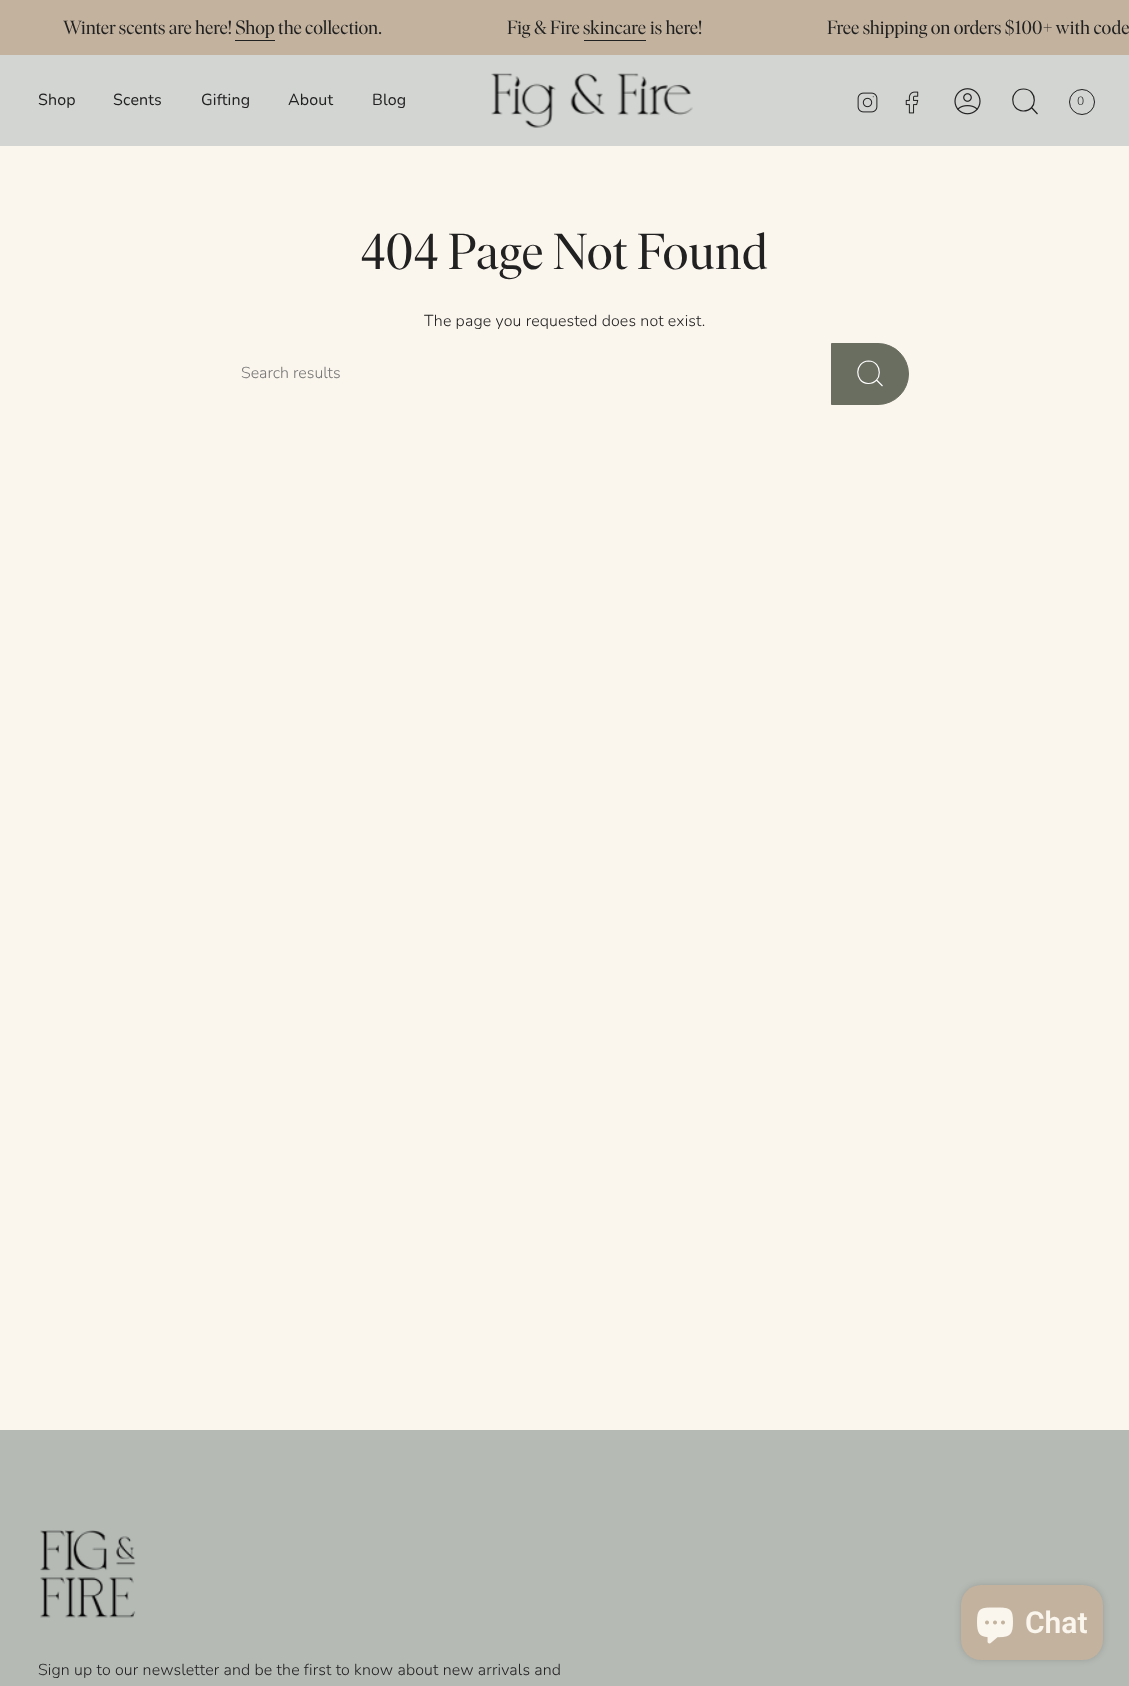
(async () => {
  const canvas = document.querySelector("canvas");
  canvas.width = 1129;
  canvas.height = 1686;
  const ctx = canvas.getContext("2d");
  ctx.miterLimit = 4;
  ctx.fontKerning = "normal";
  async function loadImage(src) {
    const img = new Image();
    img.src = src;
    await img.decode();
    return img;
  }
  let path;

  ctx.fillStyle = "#faf5ed";
  ctx.fillRect(0, 0, 1129, 1686);
  for (const [x, y, w, h, color] of [
    [0, 0, 1129, 55, "#c2b29e"],
    [235, 40, 40, 1, "#212121"],
    [584, 40, 62, 1, "#212121"],
    [0, 55, 1129, 91, "#d2d5d2"],
  ]) {
    ctx.fillStyle = color;
    ctx.fillRect(x, y, w, h);
  }
  ctx.drawImage(await loadImage("img/1.png"), 491, 73, 202, 55);
  ctx.drawImage(await loadImage("img/2.png"), 857, 92, 21, 21);
  ctx.drawImage(await loadImage("img/3.png"), 905, 91, 14, 23);
  ctx.drawImage(await loadImage("img/4.png"), 954, 88, 27, 27);
  path = new Path2D("M1023.5 89C1038 89 1038 111.5 1023 111C1009 110 1009.5 89 1023.5 89ZM1031.5 107.5L1037.5 114");
  ctx.strokeStyle = "#212121";
  ctx.lineWidth = 1.2;
  ctx.stroke(path);
  ctx.beginPath();
  ctx.arc(1082, 102, 12.5, 0, Math.PI * 2);
  ctx.lineWidth = 1;
  ctx.stroke();
  ctx.fillStyle = "#6a6e60";
  ctx.beginPath();
  ctx.roundRect(831.5, 343.5, 77, 61, [0, 30.5, 30.5, 0]);
  ctx.fill();
  ctx.strokeStyle = "#6a6e60";
  ctx.stroke();
  path = new Path2D("M868.5 361C883 361 883 384 868 383.5C854 382.5 854.5 361.5 868.5 361ZM876.5 380L882.5 386");
  ctx.strokeStyle = "#ffffff";
  ctx.lineWidth = 1.2;
  ctx.stroke(path);
  ctx.fillStyle = "#b5bab5";
  ctx.fillRect(0, 1430, 1129, 256);
  ctx.fillStyle = "rgba(0, 0, 0, 0.15)";
  ctx.filter = "blur(3px)";
  ctx.beginPath();
  ctx.roundRect(961, 1585, 142, 75, 20);
  ctx.fill();
  ctx.filter = "none";
  ctx.fillStyle = "#c2b29e";
  ctx.beginPath();
  ctx.roundRect(961, 1585, 142, 75, 20);
  ctx.fill();
  ctx.drawImage(await loadImage("img/5.png"), 977, 1607, 36, 37);
  ctx.drawImage(await loadImage("img/6.png"), 40, 1530, 96, 88);
  ctx.letterSpacing = "0.15px";
  ctx.font = "19.1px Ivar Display";
  ctx.fillStyle = "#212121";
  for (const [text, x, y] of [
    ["Winter scents are here! Shop", 63, 34],
    ["the collection.", 278, 34],
    ["Fig & Fire skincare", 507, 34],
    ["is here!", 650, 34],
    ["Free shipping on orders $100+ with code", 827, 34],
  ]) {
    ctx.fillText(text, x, y);
  }
  ctx.font = "16px Nunito";
  for (const [text, x, y] of [
    ["Shop", 38, 105],
    ["Scents", 113, 105],
    ["Gifting", 201, 105],
    ["About", 288, 105],
    ["Blog", 372, 105],
  ]) {
    ctx.fillText(text, x, y);
  }
  ctx.letterSpacing = "0px";
  ctx.font = "300 12px Nunito";
  ctx.fillText("0", 1077, 105);
  ctx.letterSpacing = "1px";
  ctx.font = "50.25px Ivar Display";
  ctx.fillText("404 Page Not Found", 361, 269);
  ctx.letterSpacing = "0.15px";
  ctx.font = "300 15.95px Nunito";
  ctx.fillText("The page you requested does not exist.", 424, 326);
  ctx.letterSpacing = "0px";
  ctx.fillStyle = "#757575";
  ctx.fillText("Search results", 241, 378);
  ctx.font = "600 30px Roboto";
  ctx.fillStyle = "#faf5ed";
  ctx.fillText("Chat", 1025, 1633);
  ctx.letterSpacing = "0.15px";
  ctx.font = "300 15.95px Nunito";
  ctx.fillStyle = "#212121";
  ctx.fillText("Sign up to our newsletter and be the first to know about new arrivals and", 38, 1675);
})();
